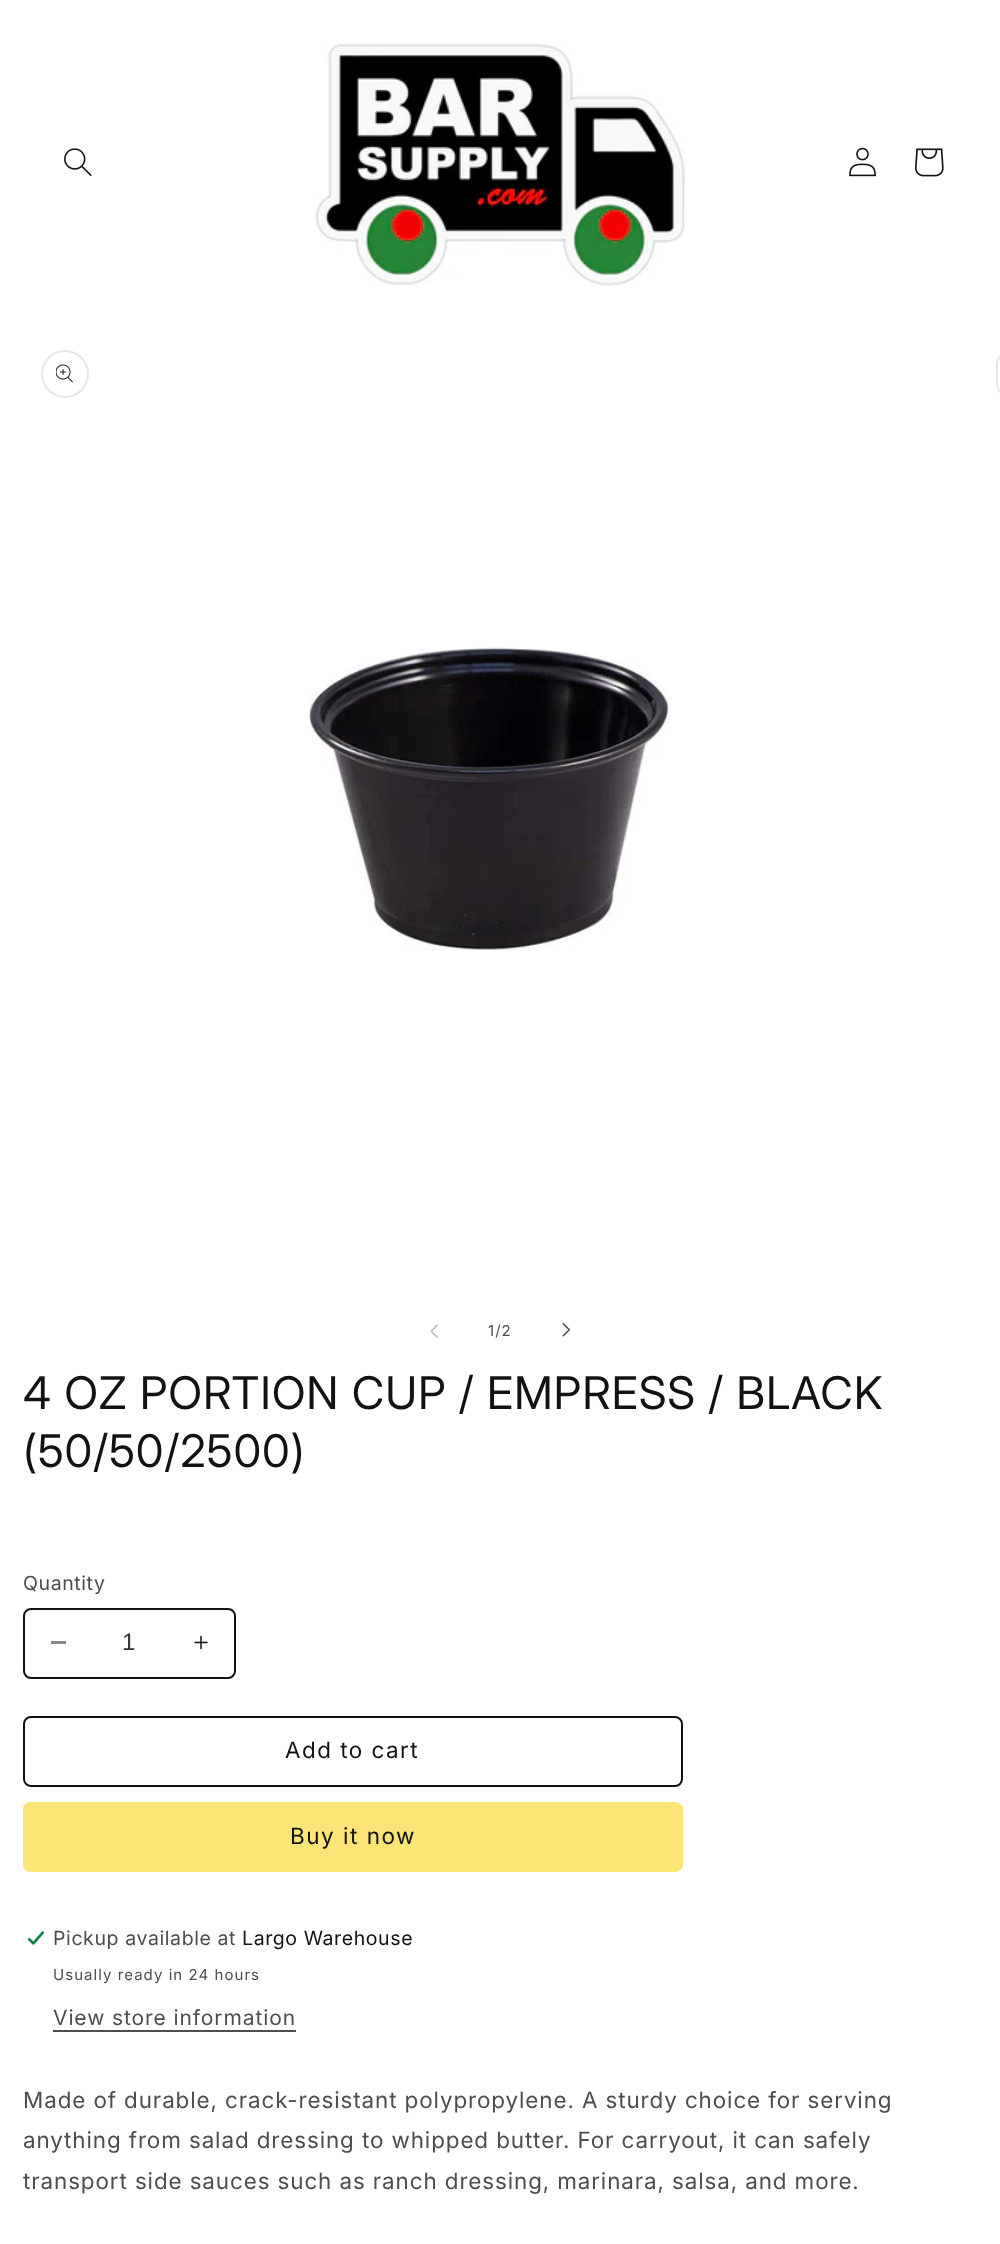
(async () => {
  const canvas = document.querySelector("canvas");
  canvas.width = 1000;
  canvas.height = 2244;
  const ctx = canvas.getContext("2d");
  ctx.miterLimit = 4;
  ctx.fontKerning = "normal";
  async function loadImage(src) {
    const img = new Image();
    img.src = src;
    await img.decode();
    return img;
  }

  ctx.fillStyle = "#ffffff";
  ctx.fillRect(0, 0, 1000, 2244);
  ctx.drawImage(await loadImage("img/1.png"), 64, 148, 28, 28);
  ctx.drawImage(await loadImage("img/2.png"), 314, 43, 372, 243);
  ctx.drawImage(await loadImage("img/3.png"), 849, 147, 27, 30);
  ctx.drawImage(await loadImage("img/4.png"), 915, 148, 29, 29);
  ctx.beginPath();
  ctx.arc(65, 374, 23, 0, Math.PI * 2);
  ctx.strokeStyle = "#e7e7e7";
  ctx.lineWidth = 2;
  ctx.stroke();
  ctx.drawImage(await loadImage("img/5.png"), 56, 364, 17, 19);
  ctx.drawImage(await loadImage("img/6.png"), 309, 647, 360, 304);
  ctx.beginPath();
  ctx.roundRect(997, 351, 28, 46, 23);
  ctx.stroke();
  ctx.drawImage(await loadImage("img/7.png"), 430, 1324, 8, 14);
  ctx.drawImage(await loadImage("img/8.png"), 562, 1323, 8, 14);
  ctx.fillStyle = "#898989";
  ctx.fillRect(51, 1641, 15, 3);
  ctx.drawImage(await loadImage("img/9.png"), 194, 1635, 14, 15);
  ctx.beginPath();
  ctx.roundRect(24, 1609, 211, 69, 7);
  ctx.strokeStyle = "#121212";
  ctx.stroke();
  ctx.beginPath();
  ctx.roundRect(24, 1717, 658, 69, 7);
  ctx.stroke();
  ctx.fillStyle = "#fce477";
  ctx.beginPath();
  ctx.roundRect(23, 1802, 660, 70, 8);
  ctx.fill();
  ctx.beginPath();
  ctx.roundRect(24, 1803, 658, 68, 7);
  ctx.strokeStyle = "#fce477";
  ctx.stroke();
  ctx.drawImage(await loadImage("img/10.png"), 27, 1931, 18, 14);
  ctx.fillStyle = "#4d4d4d";
  ctx.fillRect(53, 2030, 243, 2);
  ctx.letterSpacing = "1.05px";
  ctx.font = "15px 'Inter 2'";
  ctx.fillText("1/2", 488, 1336);
  ctx.letterSpacing = "0.9px";
  ctx.font = "45px Inter";
  ctx.fillStyle = "#121212";
  ctx.fillText("4 OZ PORTION CUP / EMPRESS / BLACK", 23, 1409);
  ctx.fillText("(50/50/2500)", 23, 1467);
  ctx.letterSpacing = "0.6px";
  ctx.font = "19.5px 'Inter 2'";
  ctx.fillStyle = "#4d4d4d";
  ctx.fillText("Quantity", 23, 1590);
  ctx.letterSpacing = "0px";
  ctx.font = "24px Liberation Sans";
  ctx.fillStyle = "#363636";
  ctx.fillText("1", 122, 1650);
  ctx.letterSpacing = "1.5px";
  ctx.font = "22.5px 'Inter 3'";
  ctx.fillStyle = "#121212";
  ctx.fillText("Add to cart", 285, 1758);
  ctx.font = "22.5px 'Inter 2'";
  ctx.fillText("Buy it now", 290, 1844);
  ctx.letterSpacing = "0.6px";
  ctx.font = "19.5px 'Inter 2'";
  ctx.fillStyle = "#4d4d4d";
  ctx.fillText("Pickup available at", 53, 1945);
  ctx.fillStyle = "#121212";
  ctx.fillText("Largo Warehouse", 242, 1945);
  ctx.letterSpacing = "1.05px";
  ctx.font = "15px 'Inter 2'";
  ctx.fillStyle = "#4d4d4d";
  ctx.fillText("Usually ready in 24 hours", 53, 1980);
  ctx.letterSpacing = "0.9px";
  ctx.font = "21px 'Inter 2'";
  ctx.fillText("View store information", 53, 2025);
  ctx.font = "22.5px 'Inter 3'";
  for (const [text, x, y] of [
    ["Made of durable, crack-resistant polypropylene. A sturdy choice for serving", 23, 2108],
    ["anything from salad dressing to whipped butter. For carryout, it can safely", 23, 2148],
    ["transport side sauces such as ranch dressing, marinara, salsa, and more.", 23, 2189],
  ]) {
    ctx.fillText(text, x, y);
  }
})();
